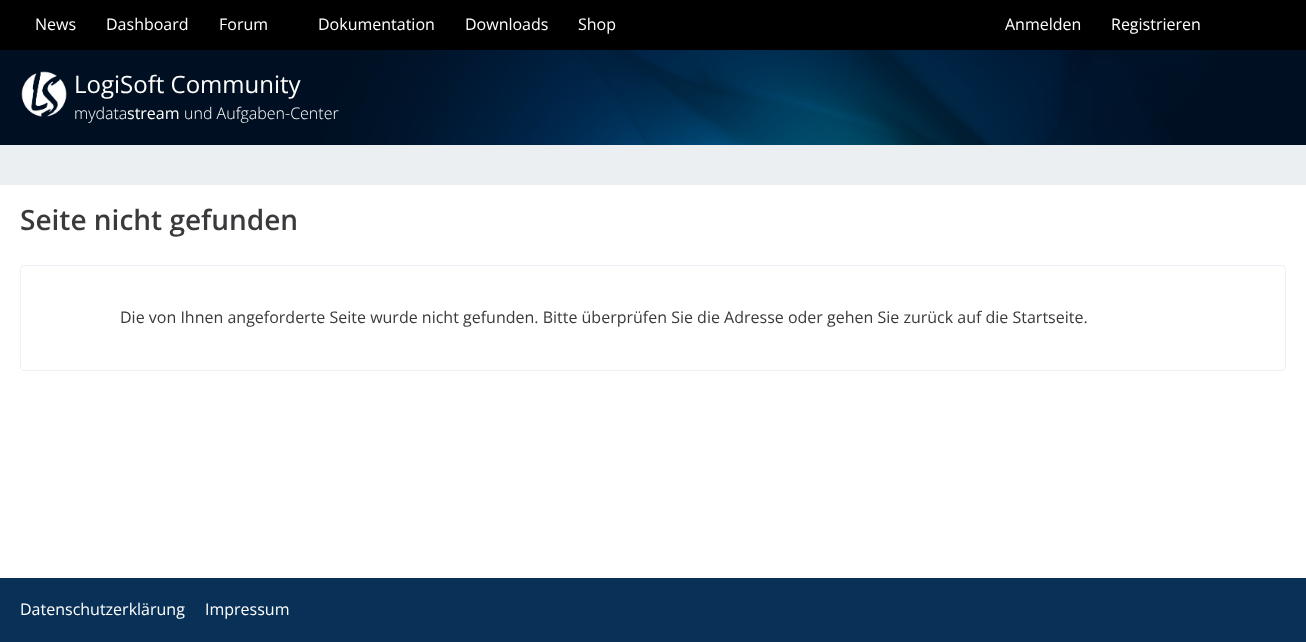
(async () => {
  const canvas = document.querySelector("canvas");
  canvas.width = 1306;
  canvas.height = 642;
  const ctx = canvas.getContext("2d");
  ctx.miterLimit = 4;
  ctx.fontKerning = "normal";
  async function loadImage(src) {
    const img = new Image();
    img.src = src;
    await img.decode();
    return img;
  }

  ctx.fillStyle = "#ffffff";
  ctx.fillRect(0, 0, 1306, 642);
  ctx.drawImage(await loadImage("img/1.png"), 0, 50, 1306, 95);
  ctx.fillStyle = "#000000";
  ctx.fillRect(0, 0, 1306, 50);
  ctx.drawImage(await loadImage("img/2.png"), 21, 71, 46, 46);
  ctx.fillStyle = "#eceff1";
  ctx.fillRect(0, 145, 1306, 40);
  ctx.beginPath();
  ctx.roundRect(20.5, 265.5, 1265, 105, 3.5);
  ctx.strokeStyle = "#ecf1f7";
  ctx.stroke();
  ctx.fillStyle = "#093157";
  ctx.fillRect(0, 578, 1306, 64);
  ctx.font = "16px Open Sans";
  ctx.fillStyle = "#ffffff";
  for (const [text, x, y] of [
    ["News", 35, 30],
    ["Dashboard", 106, 30],
    ["Forum", 219, 30],
    ["Dokumentation", 318, 30],
    ["Downloads", 465, 30],
    ["Shop", 578, 30],
    ["Anmelden", 1005, 30],
    ["Registrieren", 1111, 30],
  ]) {
    ctx.fillText(text, x, y);
  }
  ctx.font = "24px Open Sans";
  ctx.fillText("LogiSoft Community", 74, 93);
  ctx.font = "300 16px Open Sans";
  ctx.fillText("mydata", 74, 119);
  ctx.font = "16px Open Sans";
  ctx.fillText("stream", 127, 119);
  ctx.font = "300 16px Open Sans";
  ctx.fillText("und Aufgaben-Center", 184, 119);
  ctx.font = "600 28px Open Sans";
  ctx.fillStyle = "#3a3a3d";
  ctx.fillText("Seite nicht gefunden", 20, 230);
  ctx.font = "16px Open Sans";
  ctx.fillText("Die von Ihnen angeforderte Seite wurde nicht gefunden. Bitte überprüfen Sie die Adresse oder gehen Sie zurück auf die Startseite.", 120, 323);
  ctx.fillStyle = "#ffffff";
  ctx.fillText("Datenschutzerklärung", 20, 615);
  ctx.fillText("Impressum", 205, 615);
})();
